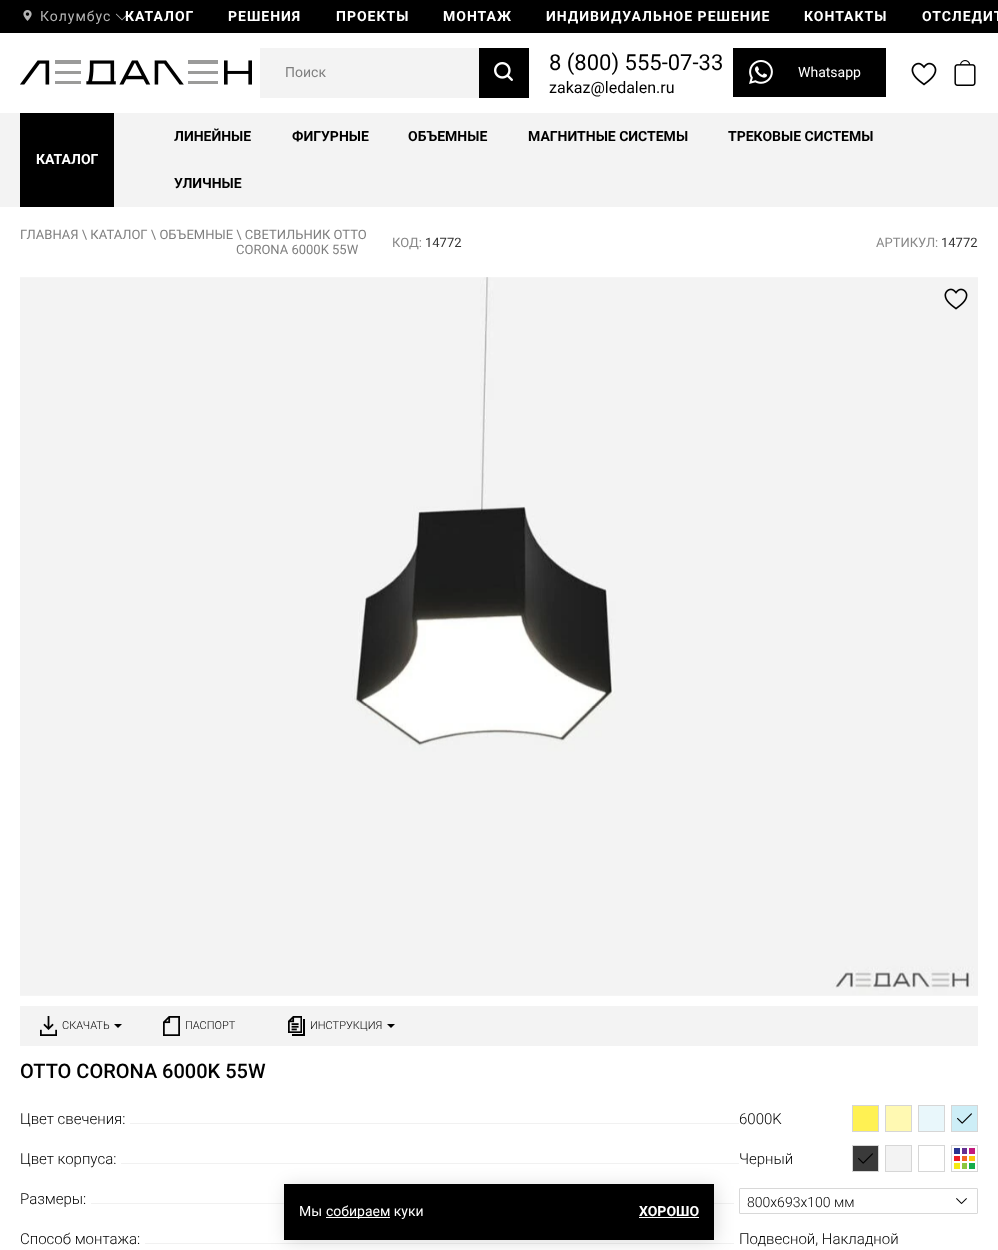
(async () => {
  const canvas = document.querySelector("canvas");
  canvas.width = 998;
  canvas.height = 1250;
  const ctx = canvas.getContext("2d");
  ctx.miterLimit = 4;
  ctx.fontKerning = "normal";
  async function loadImage(src) {
    const img = new Image();
    img.src = src;
    await img.decode();
    return img;
  }
  let path;

  ctx.fillStyle = "#ffffff";
  ctx.fillRect(0, 0, 998, 1250);
  ctx.fillStyle = "#000000";
  ctx.fillRect(0, 0, 998, 33);
  ctx.drawImage(await loadImage("img/1.png"), 23, 10, 9, 11);
  ctx.drawImage(await loadImage("img/2.png"), 115, 13, 14, 8);
  ctx.drawImage(await loadImage("img/3.png"), 20, 60, 232, 25);
  ctx.fillStyle = "#f3f3f3";
  ctx.fillRect(260, 48, 219, 50);
  ctx.fillStyle = "#000000";
  ctx.fillRect(479, 48, 50, 50);
  ctx.drawImage(await loadImage("img/4.png"), 494, 62, 19, 19);
  ctx.fillRect(733, 48, 153, 49);
  ctx.drawImage(await loadImage("img/5.png"), 749, 60, 24, 24);
  ctx.drawImage(await loadImage("img/6.png"), 911, 62, 26, 24);
  ctx.drawImage(await loadImage("img/7.png"), 954, 60, 22, 26);
  ctx.fillStyle = "#f3f3f3";
  ctx.fillRect(0, 113, 998, 94);
  ctx.fillStyle = "#000000";
  ctx.fillRect(20, 113, 94, 94);
  ctx.drawImage(await loadImage("img/9.png"), 20, 277, 958, 719);
  ctx.drawImage(await loadImage("img/8.png"), 944, 288, 24, 22);
  ctx.fillStyle = "#f3f3f3";
  ctx.fillRect(20, 1006, 958, 40);
  ctx.drawImage(await loadImage("img/10.png"), 40, 1016, 17, 20);
  ctx.fillStyle = "#000000";
  path = new Path2D("M114 1024H122L118 1028Z");
  ctx.fill(path, "evenodd");
  ctx.drawImage(await loadImage("img/11.png"), 163, 1016, 17, 20);
  ctx.drawImage(await loadImage("img/12.png"), 288, 1016, 17, 20);
  path = new Path2D("M387 1024H395L391 1028Z");
  ctx.fill(path, "evenodd");
  ctx.fillStyle = "#f1f1f1";
  ctx.fillRect(130, 1123, 609, 1);
  ctx.strokeStyle = "#d6d6d6";
  ctx.strokeRect(852.5, 1105.5, 26, 26);
  ctx.fillStyle = "#fff153";
  ctx.fillRect(853, 1106, 25, 25);
  ctx.strokeRect(885.5, 1105.5, 26, 26);
  ctx.fillStyle = "#fff9b2";
  ctx.fillRect(886, 1106, 25, 25);
  ctx.strokeRect(918.5, 1105.5, 26, 26);
  ctx.fillStyle = "#e9f7fb";
  ctx.fillRect(919, 1106, 25, 25);
  ctx.strokeRect(951.5, 1105.5, 26, 26);
  ctx.fillStyle = "#cdeef7";
  ctx.fillRect(952, 1106, 25, 25);
  ctx.drawImage(await loadImage("img/13.png"), 957, 1113, 15, 11);
  ctx.fillStyle = "#f1f1f1";
  ctx.fillRect(121, 1163, 618, 1);
  ctx.strokeRect(852.5, 1145.5, 26, 26);
  ctx.fillStyle = "#3a3a3a";
  ctx.fillRect(853, 1146, 25, 25);
  ctx.drawImage(await loadImage("img/14.png"), 858, 1153, 15, 11);
  ctx.strokeRect(885.5, 1145.5, 26, 26);
  ctx.fillStyle = "#f3f3f3";
  ctx.fillRect(886, 1146, 25, 25);
  ctx.strokeRect(918.5, 1145.5, 26, 26);
  ctx.strokeRect(951.5, 1145.5, 26, 26);
  ctx.drawImage(await loadImage("img/15.png"), 954, 1148, 21, 21);
  ctx.fillStyle = "#f1f1f1";
  ctx.fillRect(91, 1203, 643, 1);
  ctx.beginPath();
  ctx.roundRect(739.5, 1188.5, 238, 25, 0.5);
  ctx.strokeStyle = "#d8d8d8";
  ctx.stroke();
  ctx.drawImage(await loadImage("img/16.png"), 956, 1198, 11, 6);
  ctx.fillRect(145, 1243, 589, 1);
  ctx.fillStyle = "rgba(0, 0, 0, 0.14)";
  ctx.filter = "blur(9px)";
  ctx.beginPath();
  ctx.rect(286, 1186, 430, 56);
  ctx.fill();
  ctx.filter = "none";
  for (const [x, y, w, h, color] of [
    [284, 1184, 430, 56, "#000000"],
    [326, 1217, 64, 1, "#ffffff"],
    [639, 1217, 60, 1, "#ffffff"],
  ]) {
    ctx.fillStyle = color;
    ctx.fillRect(x, y, w, h);
  }
  ctx.letterSpacing = "1px";
  ctx.font = "14px Roboto";
  ctx.fillStyle = "#b5b5b5";
  ctx.fillText("Колумбус", 40, 21);
  ctx.font = "bold 14px Roboto";
  ctx.fillStyle = "#ffffff";
  for (const [text, x, y] of [
    ["КАТАЛОГ", 125, 21],
    ["РЕШЕНИЯ", 228, 21],
    ["ПРОЕКТЫ", 336, 21],
    ["МОНТАЖ", 443, 21],
    ["ИНДИВИДУАЛЬНОЕ РЕШЕНИЕ", 546, 21],
    ["КОНТАКТЫ", 804, 21],
    ["ОТСЛЕДИТ", 922, 21],
  ]) {
    ctx.fillText(text, x, y);
  }
  ctx.letterSpacing = "0px";
  ctx.font = "14px Roboto";
  ctx.fillStyle = "#7f7f7f";
  ctx.fillText("Поиск", 285, 77);
  ctx.font = "22px Roboto";
  ctx.fillStyle = "#000000";
  ctx.fillText("8 (800) 555-07-33", 549, 70);
  ctx.font = "16px Roboto";
  ctx.fillText("zakaz@ledalen.ru", 549, 93);
  ctx.font = "14px Roboto";
  ctx.fillStyle = "#ffffff";
  ctx.fillText("Whatsapp", 798, 77);
  ctx.font = "bold 14px Roboto";
  ctx.fillText("КАТАЛОГ", 36, 164);
  ctx.fillStyle = "#000000";
  for (const [text, x, y] of [
    ["ЛИНЕЙНЫЕ", 174, 141],
    ["ФИГУРНЫЕ", 292, 141],
    ["ОБЪЕМНЫЕ", 408, 141],
    ["МАГНИТНЫЕ СИСТЕМЫ", 528, 141],
    ["ТРЕКОВЫЕ СИСТЕМЫ", 728, 141],
    ["УЛИЧНЫЕ", 174, 188],
  ]) {
    ctx.fillText(text, x, y);
  }
  ctx.font = "13px Roboto";
  ctx.fillStyle = "#7f7f7f";
  ctx.fillText("ГЛАВНАЯ \\ КАТАЛОГ \\ ОБЪЕМНЫЕ \\ СВЕТИЛЬНИК OTTO", 20, 239);
  ctx.fillText("CORONA 6000K 55W", 236, 254);
  ctx.fillStyle = "#888888";
  ctx.fillText("КОД:", 392, 247);
  ctx.fillStyle = "#333333";
  ctx.fillText("14772", 425, 247);
  ctx.fillStyle = "#888888";
  ctx.fillText("АРТИКУЛ:", 876, 247);
  ctx.fillStyle = "#333333";
  ctx.fillText("14772", 941, 247);
  ctx.font = "300 11px Roboto";
  ctx.fillStyle = "#000000";
  for (const [text, x, y] of [
    ["СКАЧАТЬ", 62, 1029],
    ["ПАСПОРТ", 185, 1029],
    ["ИНСТРУКЦИЯ", 310, 1029],
  ]) {
    ctx.fillText(text, x, y);
  }
  ctx.font = "500 20px Roboto";
  ctx.fillText("OTTO CORONA 6000K 55W", 20, 1078);
  ctx.font = "300 15px Roboto";
  for (const [text, x, y] of [
    ["Цвет свечения:", 20, 1124],
    ["6000K", 739, 1124],
    ["Цвет корпуса:", 20, 1164],
    ["Черный", 739, 1164],
    ["Размеры:", 20, 1204],
  ]) {
    ctx.fillText(text, x, y);
  }
  ctx.font = "300 14px Roboto";
  ctx.fillText("800х693х100 мм", 747, 1207);
  ctx.font = "300 15px Roboto";
  ctx.fillText("Способ монтажа:", 20, 1244);
  ctx.fillText("Подвесной, Накладной", 739, 1244);
  ctx.font = "14px Roboto";
  ctx.fillStyle = "#ffffff";
  ctx.fillText("Мы", 299, 1216);
  ctx.fillText("собираем куки", 326, 1216);
  ctx.font = "bold 14px Roboto";
  ctx.fillText("ХОРОШО", 639, 1216);
})();
